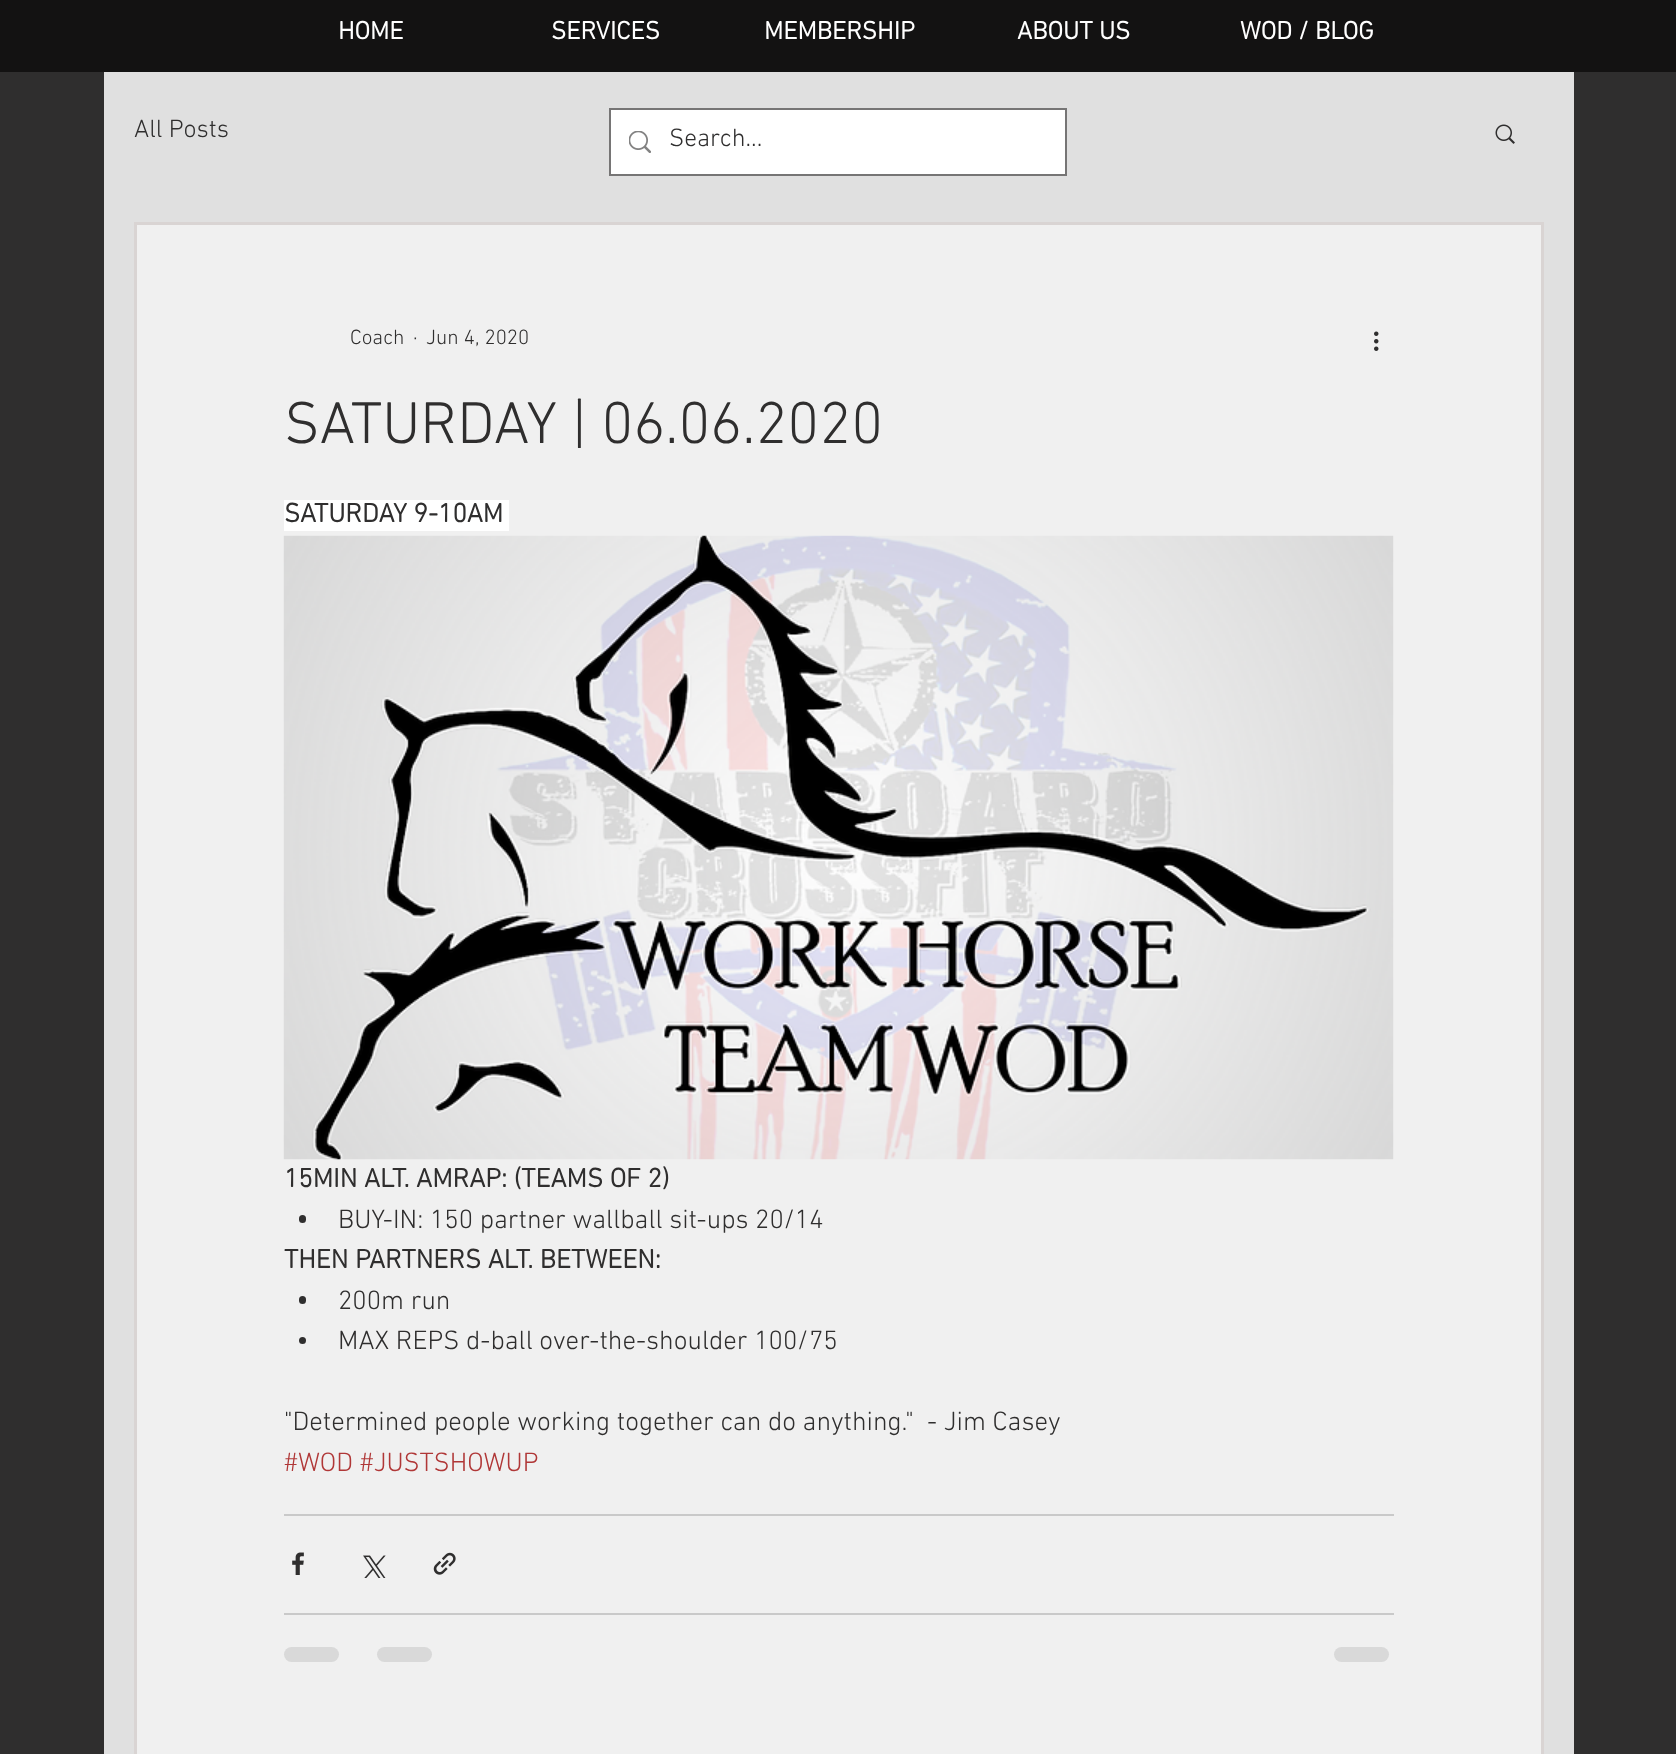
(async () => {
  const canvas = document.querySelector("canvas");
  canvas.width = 1676;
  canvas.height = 1754;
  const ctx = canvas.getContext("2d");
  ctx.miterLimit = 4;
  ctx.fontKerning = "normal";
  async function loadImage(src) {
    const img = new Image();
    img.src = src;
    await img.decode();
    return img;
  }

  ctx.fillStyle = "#2f2e2e";
  ctx.fillRect(0, 0, 1676, 1754);
  ctx.fillStyle = "#131212";
  ctx.fillRect(0, 0, 1676, 72);
  ctx.fillStyle = "#e0e0e0";
  ctx.fillRect(104, 72, 1470, 1682);
  ctx.drawImage(await loadImage("img/1.png"), 1495, 124, 20, 20);
  ctx.fillStyle = "#f0f0f0";
  ctx.beginPath();
  ctx.rect(135.5, 223.5, 1407, 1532);
  ctx.fill();
  ctx.strokeStyle = "#d9d4d3";
  ctx.lineWidth = 3;
  ctx.stroke();
  ctx.drawImage(await loadImage("img/2.png"), 1374, 331, 5, 20);
  ctx.fillStyle = "#ffffff";
  ctx.fillRect(284, 500, 225, 31);
  ctx.drawImage(await loadImage("img/3.png"), 283, 535, 1111, 625);
  ctx.fillStyle = "#2f2e2e";
  ctx.beginPath();
  ctx.roundRect(299, 1215, 7, 8, 3.5);
  ctx.fill();
  ctx.beginPath();
  ctx.roundRect(299, 1296, 7, 8, 3.5);
  ctx.fill();
  ctx.beginPath();
  ctx.arc(302.5, 1340.5, 3.5, 0, Math.PI * 2);
  ctx.fill();
  ctx.fillStyle = "#c9c9c9";
  ctx.fillRect(284, 1514, 1110, 2);
  ctx.drawImage(await loadImage("img/4.png"), 292, 1552, 12, 23);
  ctx.drawImage(await loadImage("img/5.png"), 363, 1555, 23, 23);
  ctx.drawImage(await loadImage("img/6.png"), 433, 1552, 23, 23);
  ctx.fillRect(284, 1613, 1110, 2);
  ctx.fillStyle = "#d9d9d9";
  ctx.beginPath();
  ctx.roundRect(284, 1647, 55, 15, 7.5);
  ctx.fill();
  ctx.beginPath();
  ctx.roundRect(377, 1647, 55, 15, 7.5);
  ctx.fill();
  ctx.beginPath();
  ctx.roundRect(1334, 1647, 55, 15, 7.5);
  ctx.fill();
  ctx.strokeStyle = "#767575";
  ctx.lineWidth = 2;
  ctx.strokeRect(610, 109, 456, 66);
  ctx.fillStyle = "#ffffff";
  ctx.fillRect(611, 110, 454, 64);
  ctx.drawImage(await loadImage("img/7.png"), 629, 131, 22, 22);
  ctx.font = "bold 25.5px 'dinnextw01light'";
  for (const [text, x, y] of [
    ["HOME", 338, 39],
    ["SERVICES", 551, 39],
    ["MEMBERSHIP", 764, 39],
    ["ABOUT US", 1017, 39],
    ["WOD / BLOG", 1240, 39],
  ]) {
    ctx.fillText(text, x, y);
  }
  ctx.font = "300 25.5px 'dinnextw01light'";
  ctx.fillStyle = "#2f2e2e";
  ctx.fillText("All Posts", 134, 137);
  ctx.font = "300 21px 'dinnextw01light'";
  for (const [text, x, y] of [
    ["Coach", 350, 344],
    ["·", 413, 344],
    ["Jun 4, 2020", 426, 344],
  ]) {
    ctx.fillText(text, x, y);
  }
  ctx.font = "300 60px 'dinnextw01light'";
  ctx.fillText("SATURDAY | 06.06.2020", 284, 443);
  ctx.font = "bold 27px 'dinnextw01light'";
  ctx.fillText("SATURDAY 9-10AM", 284, 522);
  ctx.fillText("15MIN ALT. AMRAP: (TEAMS OF 2)", 284, 1187);
  ctx.font = "300 27px 'dinnextw01light'";
  ctx.fillText("BUY-IN: 150 partner wallball sit-ups 20/14", 338, 1228);
  ctx.font = "bold 27px 'dinnextw01light'";
  ctx.fillText("THEN PARTNERS ALT. BETWEEN:", 284, 1268);
  ctx.font = "300 27px 'dinnextw01light'";
  for (const [text, x, y] of [
    ["200m run", 338, 1309],
    ["MAX REPS d-ball over-the-shoulder 100/75", 338, 1349],
    ["\"Determined people working together can do anything.\"  - Jim Casey", 284, 1430],
  ]) {
    ctx.fillText(text, x, y);
  }
  ctx.fillStyle = "#b03737";
  ctx.fillText("#WOD #JUSTSHOWUP", 284, 1471);
  ctx.font = "300 25.5px 'dinnextw01light'";
  ctx.fillStyle = "#2f2e2e";
  ctx.fillText("Search...", 669, 146);
})();
